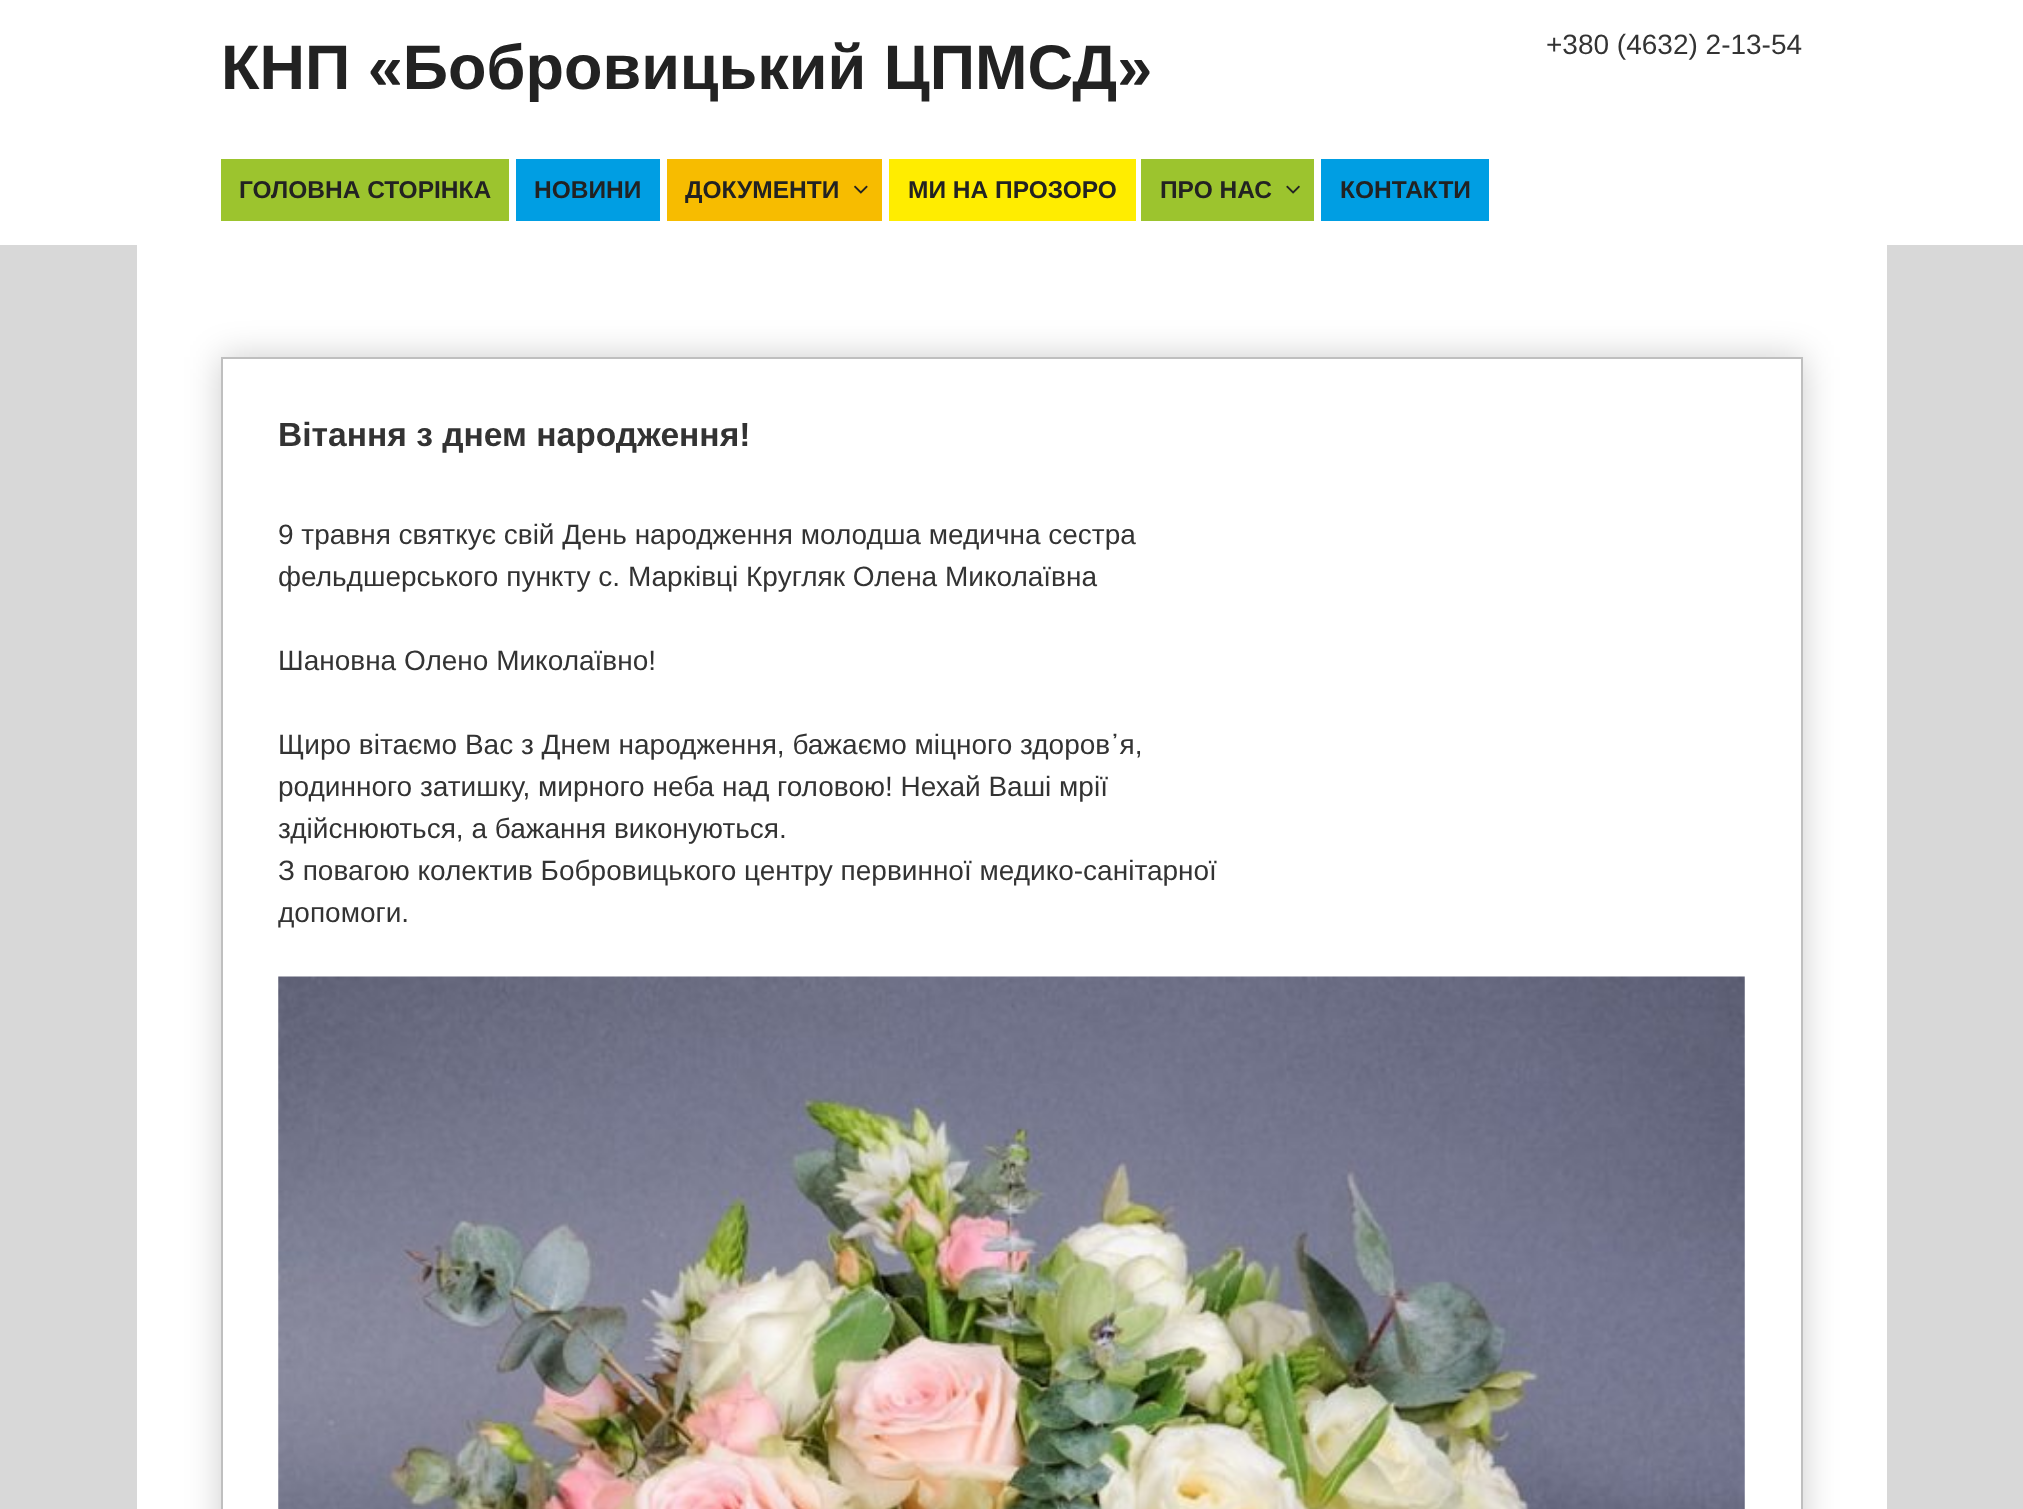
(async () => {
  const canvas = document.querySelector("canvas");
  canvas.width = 2023;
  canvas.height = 1509;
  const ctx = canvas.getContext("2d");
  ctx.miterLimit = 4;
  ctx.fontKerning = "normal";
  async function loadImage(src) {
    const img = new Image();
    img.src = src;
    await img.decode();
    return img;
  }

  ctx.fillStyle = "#d8d8d8";
  ctx.fillRect(0, 0, 2023, 1509);
  for (const [x, y, w, h, color] of [
    [0, 0, 2023, 245, "#ffffff"],
    [221, 159, 288, 62, "#9cc42e"],
    [516, 159, 144, 62, "#009ee3"],
    [667, 159, 215, 62, "#f7bc00"],
  ]) {
    ctx.fillStyle = color;
    ctx.fillRect(x, y, w, h);
  }
  ctx.drawImage(await loadImage("img/1.png"), 854, 185, 14, 9);
  ctx.fillStyle = "#ffed00";
  ctx.fillRect(889, 159, 247, 62);
  ctx.fillStyle = "#9cc42e";
  ctx.fillRect(1141, 159, 173, 62);
  ctx.drawImage(await loadImage("img/2.png"), 1286, 185, 14, 9);
  ctx.fillStyle = "#009ee3";
  ctx.fillRect(1321, 159, 168, 62);
  ctx.fillStyle = "#ffffff";
  ctx.fillRect(137, 245, 1750, 1264);
  ctx.fillStyle = "rgba(0, 0, 0, 0.2)";
  ctx.filter = "blur(17.5px)";
  ctx.beginPath();
  ctx.rect(221, 357, 1582, 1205);
  ctx.fill();
  ctx.filter = "none";
  ctx.fillStyle = "#ffffff";
  ctx.beginPath();
  ctx.rect(222, 358, 1580, 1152);
  ctx.fill();
  ctx.strokeStyle = "#bfbfbf";
  ctx.lineWidth = 2;
  ctx.stroke();
  ctx.drawImage(await loadImage("img/3.png"), 278, 976, 1467, 533);
  ctx.font = "bold 63px Liberation Sans";
  ctx.fillStyle = "#222222";
  ctx.fillText("КНП «Бобровицький ЦПМСД»", 221, 89);
  ctx.font = "28px Liberation Sans";
  ctx.fillStyle = "#333333";
  ctx.fillText("+380 (4632) 2-13-54", 1546, 54);
  ctx.font = "bold 24.5px Liberation Sans";
  ctx.fillStyle = "#222222";
  for (const [text, x, y] of [
    ["ГОЛОВНА СТОРІНКА", 239, 198],
    ["НОВИНИ", 534, 198],
    ["ДОКУМЕНТИ", 685, 198],
    ["МИ НА ПРОЗОРО", 908, 198],
    ["ПРО НАС", 1160, 198],
    ["КОНТАКТИ", 1340, 198],
  ]) {
    ctx.fillText(text, x, y);
  }
  ctx.font = "bold 33.6px Liberation Sans";
  ctx.fillStyle = "#333333";
  ctx.fillText("Вітання з днем народження!", 278, 446);
  ctx.font = "28px Liberation Sans";
  for (const [text, x, y] of [
    ["9 травня святкує свій День народження молодша медична сестра", 278, 544],
    ["фельдшерського пункту с. Марківці Кругляк Олена Миколаївна", 278, 586],
    ["Шановна Олено Миколаївно!", 278, 670],
    ["Щиро вітаємо Вас з Днем народження, бажаємо міцного здоров᾿я,", 278, 754],
    ["родинного затишку, мирного неба над головою! Нехай Ваші мрії", 278, 796],
    ["здійснюються, а бажання виконуються.", 278, 838],
    ["З повагою колектив Бобровицького центру первинної медико-санітарної", 278, 880],
    ["допомоги.", 278, 922],
  ]) {
    ctx.fillText(text, x, y);
  }
})();
